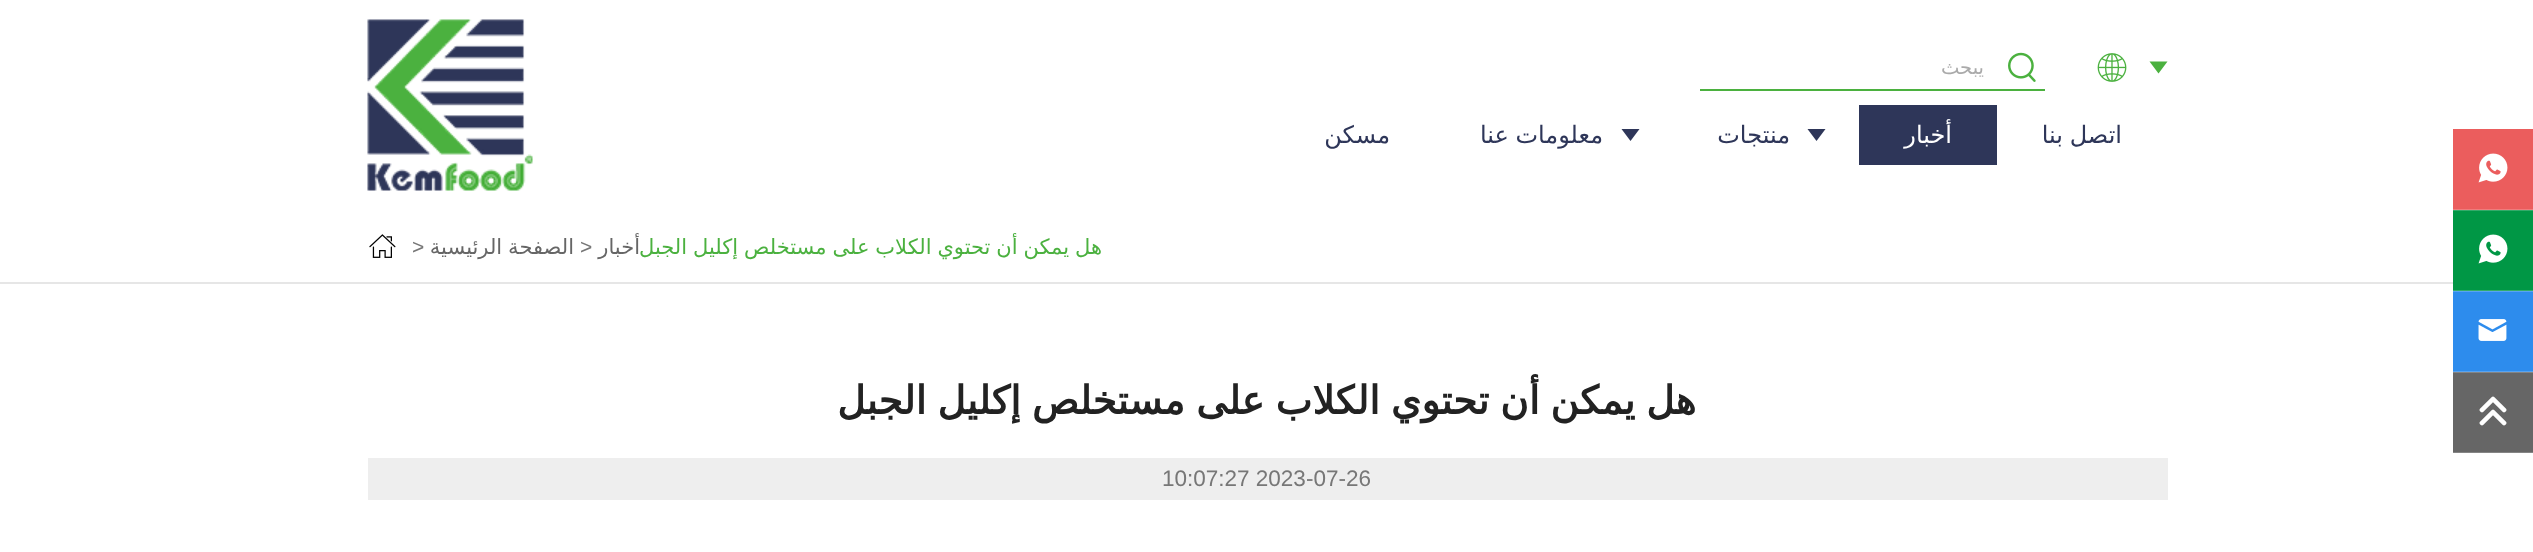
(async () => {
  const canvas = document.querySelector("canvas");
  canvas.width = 2533;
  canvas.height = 552;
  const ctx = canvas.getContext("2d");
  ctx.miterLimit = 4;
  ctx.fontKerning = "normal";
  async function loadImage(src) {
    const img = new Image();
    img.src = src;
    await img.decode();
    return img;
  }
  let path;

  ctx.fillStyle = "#ffffff";
  ctx.fillRect(0, 0, 2533, 552);
  ctx.fillStyle = "#4bb13f";
  path = new Path2D("M2149.5 61.5H2167.5L2158.5 73.5Z");
  ctx.fill(path);
  ctx.drawImage(await loadImage("img/1.png"), 2097, 53, 30, 29);
  ctx.fillRect(1700, 89, 345, 2);
  ctx.drawImage(await loadImage("img/2.png"), 2008, 52, 28, 30);
  ctx.fillStyle = "#2e3659";
  ctx.fillRect(1859, 105, 138, 60);
  path = new Path2D("M1807.5 129H1825.5L1816.5 141Z");
  ctx.fill(path);
  path = new Path2D("M1621.5 129H1639.5L1630.5 141Z");
  ctx.fill(path);
  ctx.drawImage(await loadImage("img/3.png"), 367, 19, 166, 172);
  for (const [x, y, w, h, color] of [
    [2453, 129, 80, 81, "#eb5d5d"],
    [2453, 210, 80, 80, "#009745"],
    [2453, 209, 80, 2, "rgba(255, 255, 255, 0.2)"],
  ]) {
    ctx.fillStyle = color;
    ctx.fillRect(x, y, w, h);
  }
  ctx.drawImage(await loadImage("img/4.png"), 2478, 153, 30, 30);
  ctx.fillStyle = "#33ac6a";
  ctx.fillRect(2453, 290, 80, 1);
  ctx.drawImage(await loadImage("img/5.png"), 2478, 234, 30, 30);
  for (const [x, y, w, h, color] of [
    [2453, 292, 80, 79, "#2d8ced"],
    [2453, 371, 80, 1, "#57a3f1"],
    [2453, 291, 80, 1, "#57a3f1"],
  ]) {
    ctx.fillStyle = color;
    ctx.fillRect(x, y, w, h);
  }
  ctx.drawImage(await loadImage("img/6.png"), 2478, 319, 29, 22);
  for (const [x, y, w, h, color] of [
    [2453, 373, 80, 79, "#666666"],
    [2453, 452, 80, 1, "#858585"],
    [2453, 372, 80, 1, "#858585"],
  ]) {
    ctx.fillStyle = color;
    ctx.fillRect(x, y, w, h);
  }
  ctx.drawImage(await loadImage("img/7.png"), 2479, 396, 28, 30);
  ctx.fillStyle = "#e6e6e6";
  ctx.fillRect(0, 282, 2453, 2);
  ctx.drawImage(await loadImage("img/8.png"), 369, 234, 27, 24);
  ctx.fillStyle = "#eeeeee";
  ctx.fillRect(368, 458, 1800, 42);
  ctx.direction = "rtl";
  ctx.font = "19.5px DejaVu Sans";
  ctx.fillStyle = "#aaaaaa";
  ctx.fillText("يبحث", 1984, 74);
  ctx.wordSpacing = "-1px";
  ctx.font = "24px DejaVu Sans";
  ctx.fillStyle = "#2e3659";
  ctx.fillText("اتصل بنا", 2122, 143);
  ctx.wordSpacing = "0px";
  ctx.fillStyle = "#ffffff";
  ctx.fillText("أخبار", 1952, 143);
  ctx.fillStyle = "#2e3659";
  ctx.fillText("منتجات", 1790, 143);
  ctx.wordSpacing = "-1px";
  ctx.fillText("معلومات عنا", 1603, 143);
  ctx.wordSpacing = "0px";
  ctx.fillText("مسكن", 1390, 143);
  ctx.wordSpacing = "-0.75px";
  ctx.font = "21px DejaVu Sans";
  ctx.fillStyle = "#4bb13f";
  ctx.fillText("هل يمكن أن تحتوي الكلاب على مستخلص إكليل الجبل", 1102, 254);
  ctx.wordSpacing = "0px";
  ctx.fillStyle = "#666666";
  ctx.fillText("أخبار", 640, 254);
  ctx.direction = "ltr";
  ctx.font = "21px Liberation Sans";
  ctx.fillStyle = "#777777";
  ctx.fillText(">", 580, 254);
  ctx.wordSpacing = "-0.75px";
  ctx.direction = "rtl";
  ctx.font = "21px DejaVu Sans";
  ctx.fillStyle = "#666666";
  ctx.fillText("الصفحة الرئيسية", 574, 254);
  ctx.wordSpacing = "0px";
  ctx.direction = "ltr";
  ctx.font = "21px Liberation Sans";
  ctx.fillStyle = "#777777";
  ctx.fillText(">", 412, 254);
  ctx.wordSpacing = "-1.5px";
  ctx.direction = "rtl";
  ctx.font = "bold 39px DejaVu Sans";
  ctx.fillStyle = "#222222";
  ctx.fillText("هل يمكن أن تحتوي الكلاب على مستخلص إكليل الجبل", 1696, 414);
  ctx.wordSpacing = "0px";
  ctx.direction = "ltr";
  ctx.font = "22.5px Liberation Sans";
  ctx.fillStyle = "#777777";
  ctx.fillText("10:07:27 2023-07-26", 1162, 486);
})();
